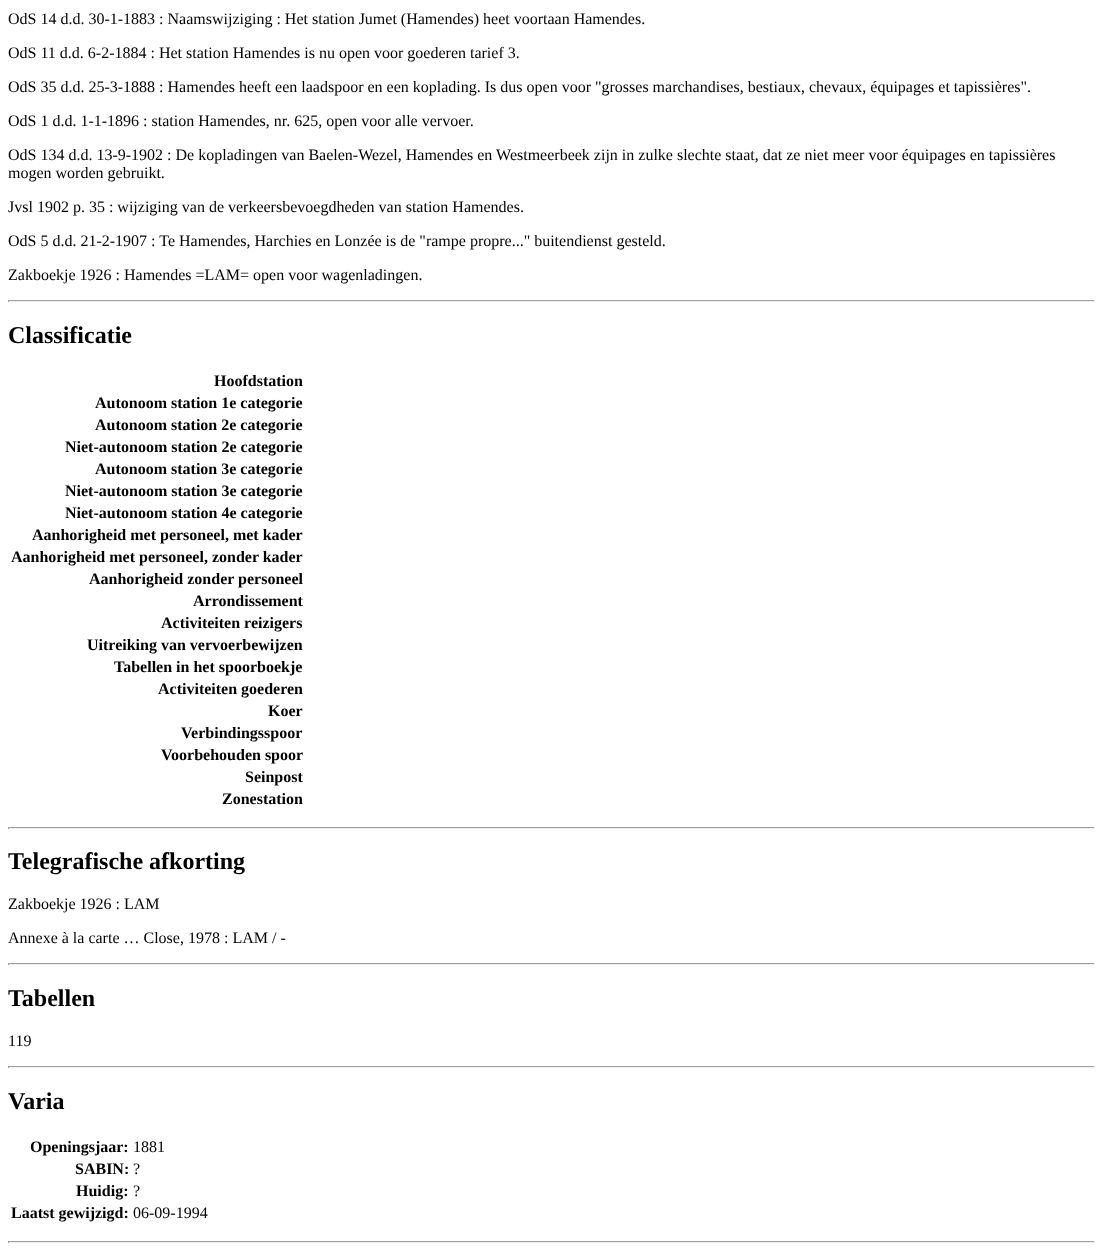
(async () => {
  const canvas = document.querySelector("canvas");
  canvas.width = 1103;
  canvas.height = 1251;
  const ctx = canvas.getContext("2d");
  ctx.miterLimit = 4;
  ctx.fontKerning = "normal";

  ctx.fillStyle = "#ffffff";
  ctx.fillRect(0, 0, 1103, 1251);
  for (const [x, y, w, h, color] of [
    [8, 300, 1087, 1, "#9f9f9f"],
    [1094, 300, 1, 2, "#eeeeee"],
    [8, 301, 1087, 1, "#eeeeee"],
    [8, 300, 1, 2, "#9f9f9f"],
    [8, 827, 1087, 1, "#9f9f9f"],
    [1094, 827, 1, 2, "#eeeeee"],
    [8, 828, 1087, 1, "#eeeeee"],
    [8, 827, 1, 2, "#9f9f9f"],
    [8, 963, 1087, 1, "#9f9f9f"],
    [1094, 963, 1, 2, "#eeeeee"],
    [8, 964, 1087, 1, "#eeeeee"],
    [8, 963, 1, 2, "#9f9f9f"],
    [8, 1066, 1087, 1, "#9f9f9f"],
    [1094, 1066, 1, 2, "#eeeeee"],
    [8, 1067, 1087, 1, "#eeeeee"],
    [8, 1066, 1, 2, "#9f9f9f"],
    [8, 1241, 1087, 1, "#9f9f9f"],
    [1094, 1241, 1, 2, "#eeeeee"],
    [8, 1242, 1087, 1, "#eeeeee"],
    [8, 1241, 1, 2, "#9f9f9f"],
  ]) {
    ctx.fillStyle = color;
    ctx.fillRect(x, y, w, h);
  }
  ctx.font = "16px Liberation Serif";
  ctx.fillStyle = "#000000";
  for (const [text, x, y] of [
    ["OdS 14 d.d. 30-1-1883 : Naamswijziging : Het station Jumet (Hamendes) heet voortaan Hamendes.", 8, 24],
    ["OdS 11 d.d. 6-2-1884 : Het station Hamendes is nu open voor goederen tarief 3.", 8, 58],
    ["OdS 35 d.d. 25-3-1888 : Hamendes heeft een laadspoor en een koplading. Is dus open voor \"grosses marchandises, bestiaux, chevaux, équipages et tapissières\".", 8, 92],
    ["OdS 1 d.d. 1-1-1896 : station Hamendes, nr. 625, open voor alle vervoer.", 8, 126],
    ["OdS 134 d.d. 13-9-1902 : De kopladingen van Baelen-Wezel, Hamendes en Westmeerbeek zijn in zulke slechte staat, dat ze niet meer voor équipages en tapissières", 8, 160],
    ["mogen worden gebruikt.", 8, 178],
    ["Jvsl 1902 p. 35 : wijziging van de verkeersbevoegdheden van station Hamendes.", 8, 212],
    ["OdS 5 d.d. 21-2-1907 : Te Hamendes, Harchies en Lonzée is de \"rampe propre...\" buitendienst gesteld.", 8, 246],
    ["Zakboekje 1926 : Hamendes =LAM= open voor wagenladingen.", 8, 280],
  ]) {
    ctx.fillText(text, x, y);
  }
  ctx.font = "bold 24px Liberation Serif";
  ctx.fillText("Classificatie", 8, 343);
  ctx.font = "bold 16px Liberation Serif";
  for (const [text, x, y] of [
    ["Hoofdstation", 214, 386],
    ["Autonoom station 1e categorie", 95, 408],
    ["Autonoom station 2e categorie", 95, 430],
    ["Niet-autonoom station 2e categorie", 65, 452],
    ["Autonoom station 3e categorie", 95, 474],
    ["Niet-autonoom station 3e categorie", 65, 496],
    ["Niet-autonoom station 4e categorie", 65, 518],
    ["Aanhorigheid met personeel, met kader", 32, 540],
    ["Aanhorigheid met personeel, zonder kader", 11, 562],
    ["Aanhorigheid zonder personeel", 89, 584],
    ["Arrondissement", 193, 606],
    ["Activiteiten reizigers", 161, 628],
    ["Uitreiking van vervoerbewijzen", 87, 650],
    ["Tabellen in het spoorboekje", 114, 672],
    ["Activiteiten goederen", 158, 694],
    ["Koer", 268, 716],
    ["Verbindingsspoor", 181, 738],
    ["Voorbehouden spoor", 161, 760],
    ["Seinpost", 245, 782],
    ["Zonestation", 222, 804],
  ]) {
    ctx.fillText(text, x, y);
  }
  ctx.font = "bold 24px Liberation Serif";
  ctx.fillText("Telegrafische afkorting", 8, 869);
  ctx.font = "16px Liberation Serif";
  ctx.fillText("Zakboekje 1926 : LAM", 8, 909);
  ctx.fillText("Annexe à la carte … Close, 1978 : LAM / -", 8, 943);
  ctx.font = "bold 24px Liberation Serif";
  ctx.fillText("Tabellen", 8, 1006);
  ctx.font = "16px Liberation Serif";
  ctx.fillText("119", 8, 1046);
  ctx.font = "bold 24px Liberation Serif";
  ctx.fillText("Varia", 8, 1109);
  ctx.font = "bold 16px Liberation Serif";
  ctx.fillText("Openingsjaar:", 30, 1152);
  ctx.font = "16px Liberation Serif";
  ctx.fillText("1881", 133, 1152);
  ctx.font = "bold 16px Liberation Serif";
  ctx.fillText("SABIN:", 75, 1174);
  ctx.font = "16px Liberation Serif";
  ctx.fillText("?", 133, 1174);
  ctx.font = "bold 16px Liberation Serif";
  ctx.fillText("Huidig:", 76, 1196);
  ctx.font = "16px Liberation Serif";
  ctx.fillText("?", 133, 1196);
  ctx.font = "bold 16px Liberation Serif";
  ctx.fillText("Laatst gewijzigd:", 11, 1218);
  ctx.font = "16px Liberation Serif";
  ctx.fillText("06-09-1994", 133, 1218);
})();
